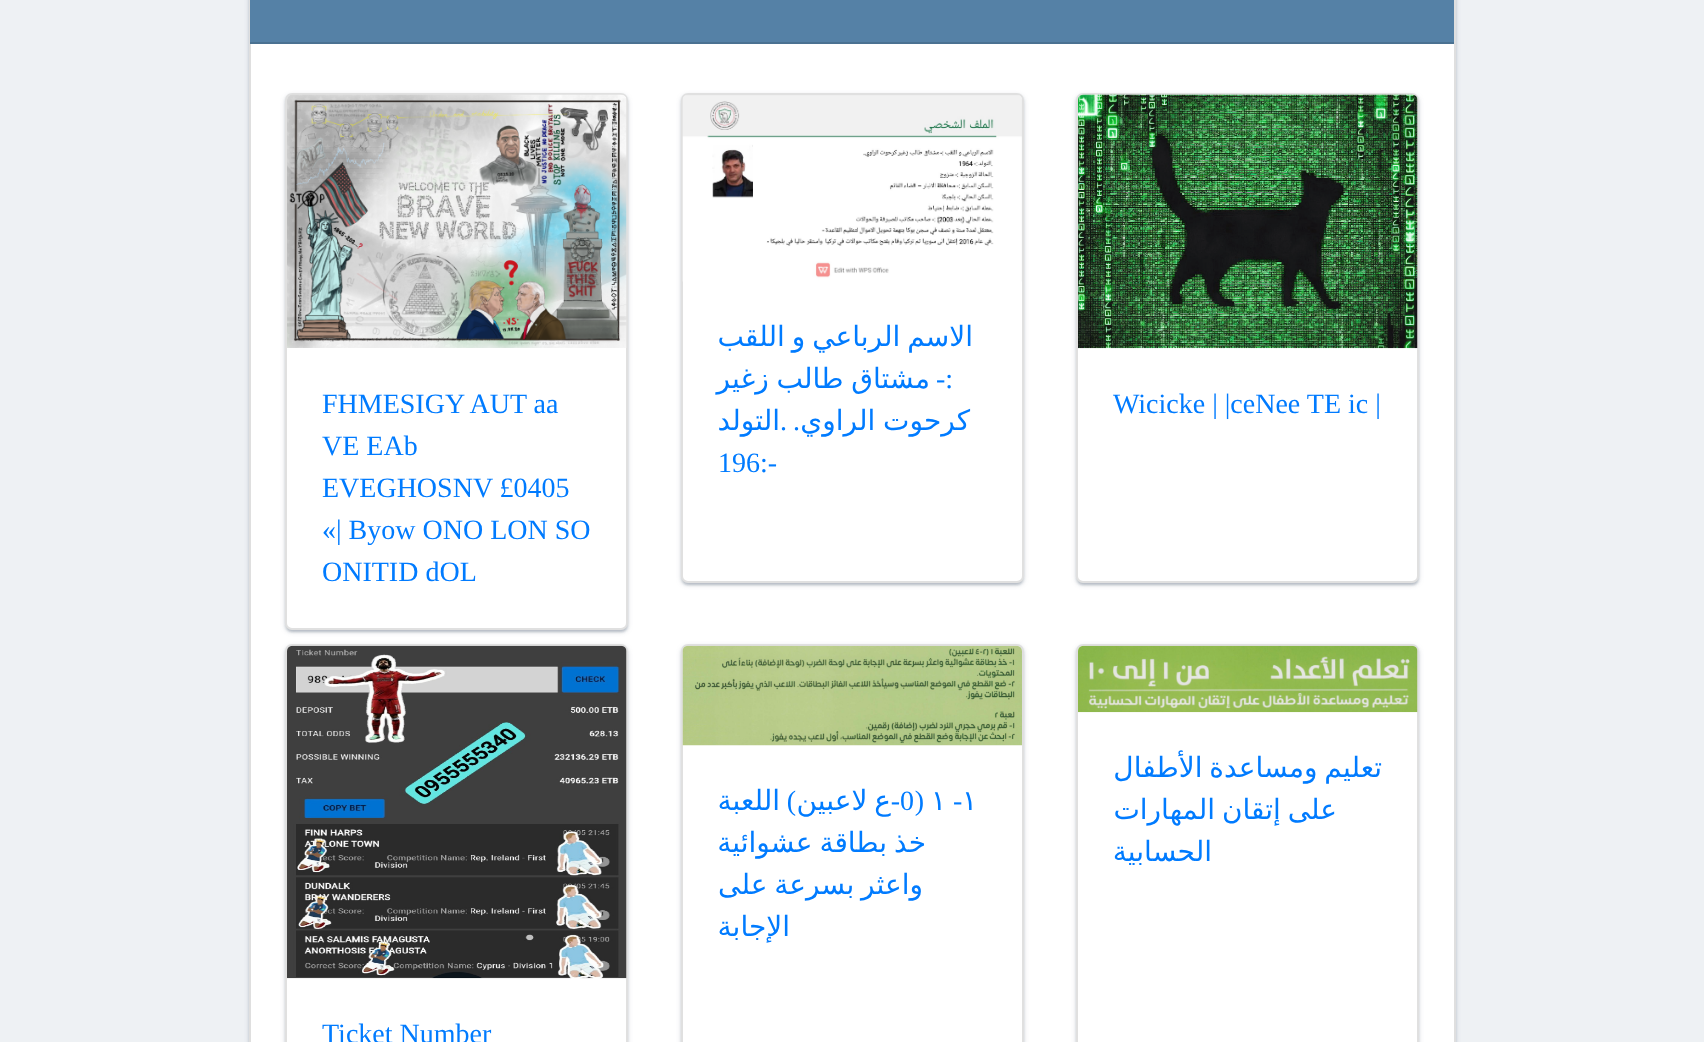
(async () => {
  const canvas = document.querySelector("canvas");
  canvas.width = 1704;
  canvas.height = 1042;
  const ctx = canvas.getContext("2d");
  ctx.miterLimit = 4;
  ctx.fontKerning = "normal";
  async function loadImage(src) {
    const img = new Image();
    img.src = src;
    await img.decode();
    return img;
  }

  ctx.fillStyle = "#eef1f4";
  ctx.fillRect(0, 0, 1704, 1042);
  ctx.fillStyle = "rgba(60, 75, 100, 0.2)";
  ctx.filter = "blur(2.5px)";
  ctx.beginPath();
  ctx.roundRect(249, -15, 1207, 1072, 7);
  ctx.fill();
  ctx.filter = "none";
  ctx.fillStyle = "rgba(60, 75, 100, 0.14)";
  ctx.filter = "blur(1px)";
  ctx.beginPath();
  ctx.roundRect(249, -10, 1207, 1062, 7);
  ctx.fill();
  ctx.filter = "none";
  ctx.fillStyle = "#ffffff";
  ctx.fillRect(251, 44, 1203, 998);
  ctx.strokeStyle = "#dfdfdf";
  ctx.lineWidth = 2;
  ctx.strokeRect(250, -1, 1205, 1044);
  ctx.fillStyle = "#5581a6";
  ctx.fillRect(250, 0, 1204, 42);
  ctx.fillStyle = "#4a7191";
  ctx.fillRect(250, 42, 1204, 2);
  ctx.fillStyle = "rgba(60, 75, 100, 0.2)";
  ctx.filter = "blur(2.5px)";
  ctx.beginPath();
  ctx.roundRect(1076, 95, 343, 490, 7);
  ctx.fill();
  ctx.filter = "none";
  ctx.fillStyle = "rgba(60, 75, 100, 0.12)";
  ctx.filter = "blur(1px)";
  ctx.beginPath();
  ctx.roundRect(1078, 98, 340, 487, 5);
  ctx.fill();
  ctx.filter = "none";
  ctx.fillStyle = "rgba(60, 75, 100, 0.14)";
  ctx.filter = "blur(1px)";
  ctx.beginPath();
  ctx.roundRect(1076, 95, 343, 490, 7);
  ctx.fill();
  ctx.filter = "none";
  ctx.fillStyle = "#ffffff";
  ctx.beginPath();
  ctx.roundRect(1076, 93, 343, 490, 7);
  ctx.fill();
  ctx.beginPath();
  ctx.roundRect(1077, 94, 341, 488, 6);
  ctx.strokeStyle = "rgba(0, 0, 0, 0.12)";
  ctx.stroke();
  ctx.drawImage(await loadImage("img/1.png"), 1078, 94, 340, 255);
  ctx.fillStyle = "rgba(60, 75, 100, 0.2)";
  ctx.filter = "blur(2.5px)";
  ctx.beginPath();
  ctx.roundRect(681, 95, 343, 490, 7);
  ctx.fill();
  ctx.filter = "none";
  ctx.fillStyle = "rgba(60, 75, 100, 0.12)";
  ctx.filter = "blur(1px)";
  ctx.beginPath();
  ctx.roundRect(683, 98, 339, 487, 5);
  ctx.fill();
  ctx.filter = "none";
  ctx.fillStyle = "rgba(60, 75, 100, 0.14)";
  ctx.filter = "blur(1px)";
  ctx.beginPath();
  ctx.roundRect(681, 95, 343, 490, 7);
  ctx.fill();
  ctx.filter = "none";
  ctx.fillStyle = "#ffffff";
  ctx.beginPath();
  ctx.roundRect(681, 93, 343, 490, 7);
  ctx.fill();
  ctx.beginPath();
  ctx.roundRect(682, 94, 341, 488, 6);
  ctx.stroke();
  ctx.drawImage(await loadImage("img/2.png"), 682, 95, 340, 187);
  ctx.fillStyle = "rgba(60, 75, 100, 0.2)";
  ctx.filter = "blur(2.5px)";
  ctx.beginPath();
  ctx.roundRect(285, 95, 343, 537, 7);
  ctx.fill();
  ctx.filter = "none";
  ctx.fillStyle = "rgba(60, 75, 100, 0.12)";
  ctx.filter = "blur(1px)";
  ctx.beginPath();
  ctx.roundRect(287, 98, 340, 534, 5);
  ctx.fill();
  ctx.filter = "none";
  ctx.fillStyle = "rgba(60, 75, 100, 0.14)";
  ctx.filter = "blur(1px)";
  ctx.beginPath();
  ctx.roundRect(285, 95, 343, 537, 7);
  ctx.fill();
  ctx.filter = "none";
  ctx.fillStyle = "#ffffff";
  ctx.beginPath();
  ctx.roundRect(285, 93, 343, 537, 7);
  ctx.fill();
  ctx.beginPath();
  ctx.roundRect(286, 94, 341, 535, 6);
  ctx.stroke();
  ctx.drawImage(await loadImage("img/3.png"), 287, 94, 340, 254);
  ctx.fillStyle = "rgba(60, 75, 100, 0.2)";
  ctx.filter = "blur(2.5px)";
  ctx.beginPath();
  ctx.roundRect(1076, 646, 343, 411, 7);
  ctx.fill();
  ctx.filter = "none";
  ctx.fillStyle = "rgba(60, 75, 100, 0.14)";
  ctx.filter = "blur(1px)";
  ctx.beginPath();
  ctx.roundRect(1076, 646, 343, 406, 7);
  ctx.fill();
  ctx.filter = "none";
  ctx.fillStyle = "#ffffff";
  ctx.beginPath();
  ctx.roundRect(1076, 644, 343, 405, 7);
  ctx.fill();
  ctx.beginPath();
  ctx.roundRect(1077, 645, 341, 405, 6);
  ctx.stroke();
  ctx.drawImage(await loadImage("img/4.png"), 1078, 645, 340, 68);
  ctx.fillStyle = "rgba(60, 75, 100, 0.2)";
  ctx.filter = "blur(2.5px)";
  ctx.beginPath();
  ctx.roundRect(681, 646, 343, 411, 7);
  ctx.fill();
  ctx.filter = "none";
  ctx.fillStyle = "rgba(60, 75, 100, 0.14)";
  ctx.filter = "blur(1px)";
  ctx.beginPath();
  ctx.roundRect(681, 646, 343, 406, 7);
  ctx.fill();
  ctx.filter = "none";
  ctx.fillStyle = "#ffffff";
  ctx.beginPath();
  ctx.roundRect(681, 644, 343, 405, 7);
  ctx.fill();
  ctx.beginPath();
  ctx.roundRect(682, 645, 341, 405, 6);
  ctx.stroke();
  ctx.drawImage(await loadImage("img/5.png"), 682, 645, 340, 101);
  ctx.fillStyle = "rgba(60, 75, 100, 0.2)";
  ctx.filter = "blur(2.5px)";
  ctx.beginPath();
  ctx.roundRect(285, 646, 343, 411, 7);
  ctx.fill();
  ctx.filter = "none";
  ctx.fillStyle = "rgba(60, 75, 100, 0.14)";
  ctx.filter = "blur(1px)";
  ctx.beginPath();
  ctx.roundRect(285, 646, 343, 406, 7);
  ctx.fill();
  ctx.filter = "none";
  ctx.fillStyle = "#ffffff";
  ctx.beginPath();
  ctx.roundRect(285, 644, 343, 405, 7);
  ctx.fill();
  ctx.beginPath();
  ctx.roundRect(286, 645, 341, 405, 6);
  ctx.stroke();
  ctx.drawImage(await loadImage("img/6.png"), 287, 645, 340, 334);
  ctx.font = "28px Liberation Serif";
  ctx.fillStyle = "#007bff";
  ctx.fillText("Wicicke | |ceNee TE ic |", 1113, 413);
  ctx.wordSpacing = "-2px";
  ctx.direction = "rtl";
  ctx.font = "28px DejaVu Sans";
  ctx.fillText("الاسم الرباعي و اللقب", 973, 346);
  ctx.wordSpacing = "0px";
  ctx.font = "28px Liberation Serif";
  ctx.fillText(":-", 953, 388);
  ctx.wordSpacing = "-1px";
  ctx.font = "28px DejaVu Sans";
  ctx.fillText("مشتاق طالب زغير", 930, 388);
  ctx.fillText("كرحوت الراوي", 970, 430);
  ctx.wordSpacing = "0px";
  ctx.font = "28px Liberation Serif";
  ctx.fillText(".", 800, 430);
  ctx.fillText(".", 787, 430);
  ctx.font = "28px DejaVu Sans";
  ctx.fillText("التولد", 780, 430);
  ctx.direction = "ltr";
  ctx.font = "28px Liberation Serif";
  for (const [text, x, y] of [
    ["196:-", 718, 472],
    ["FHMESIGY AUT aa", 322, 413],
    ["VE EAb", 322, 455],
    ["EVEGHOSNV £0405", 322, 497],
    ["«| Byow ONO LON SO", 322, 539],
    ["ONITID dOL", 322, 581],
  ]) {
    ctx.fillText(text, x, y);
  }
  ctx.wordSpacing = "-2px";
  ctx.direction = "rtl";
  ctx.font = "28px DejaVu Sans";
  ctx.fillText("تعليم ومساعدة الأطفال", 1382, 777);
  ctx.fillText("على إتقان المهارات", 1337, 819);
  ctx.wordSpacing = "0px";
  ctx.fillText("الحسابية", 1212, 861);
  ctx.direction = "ltr";
  ctx.fillText("١", 962, 810);
  ctx.font = "28px Liberation Serif";
  ctx.fillText("-", 953, 810);
  ctx.font = "28px DejaVu Sans";
  ctx.fillText("١", 931, 810);
  ctx.direction = "rtl";
  ctx.font = "28px Liberation Serif";
  ctx.fillText(" (", 931, 810);
  ctx.direction = "ltr";
  ctx.fillText("0", 900, 810);
  ctx.wordSpacing = "-2px";
  ctx.direction = "rtl";
  ctx.font = "28px DejaVu Sans";
  ctx.fillText("ع لاعبين", 891, 810);
  ctx.wordSpacing = "0px";
  ctx.font = "28px Liberation Serif";
  ctx.fillText("-", 900, 810);
  ctx.fillText(")", 796, 810);
  ctx.font = "28px DejaVu Sans";
  ctx.fillText("اللعبة", 780, 810);
  ctx.wordSpacing = "-2px";
  ctx.fillText("خذ بطاقة عشوائية", 926, 852);
  ctx.fillText("واعثر بسرعة على", 923, 894);
  ctx.wordSpacing = "0px";
  ctx.fillText("الإجابة", 790, 936);
  ctx.direction = "ltr";
  ctx.font = "28px Liberation Serif";
  ctx.fillText("Ticket Number", 322, 1043);
})();
